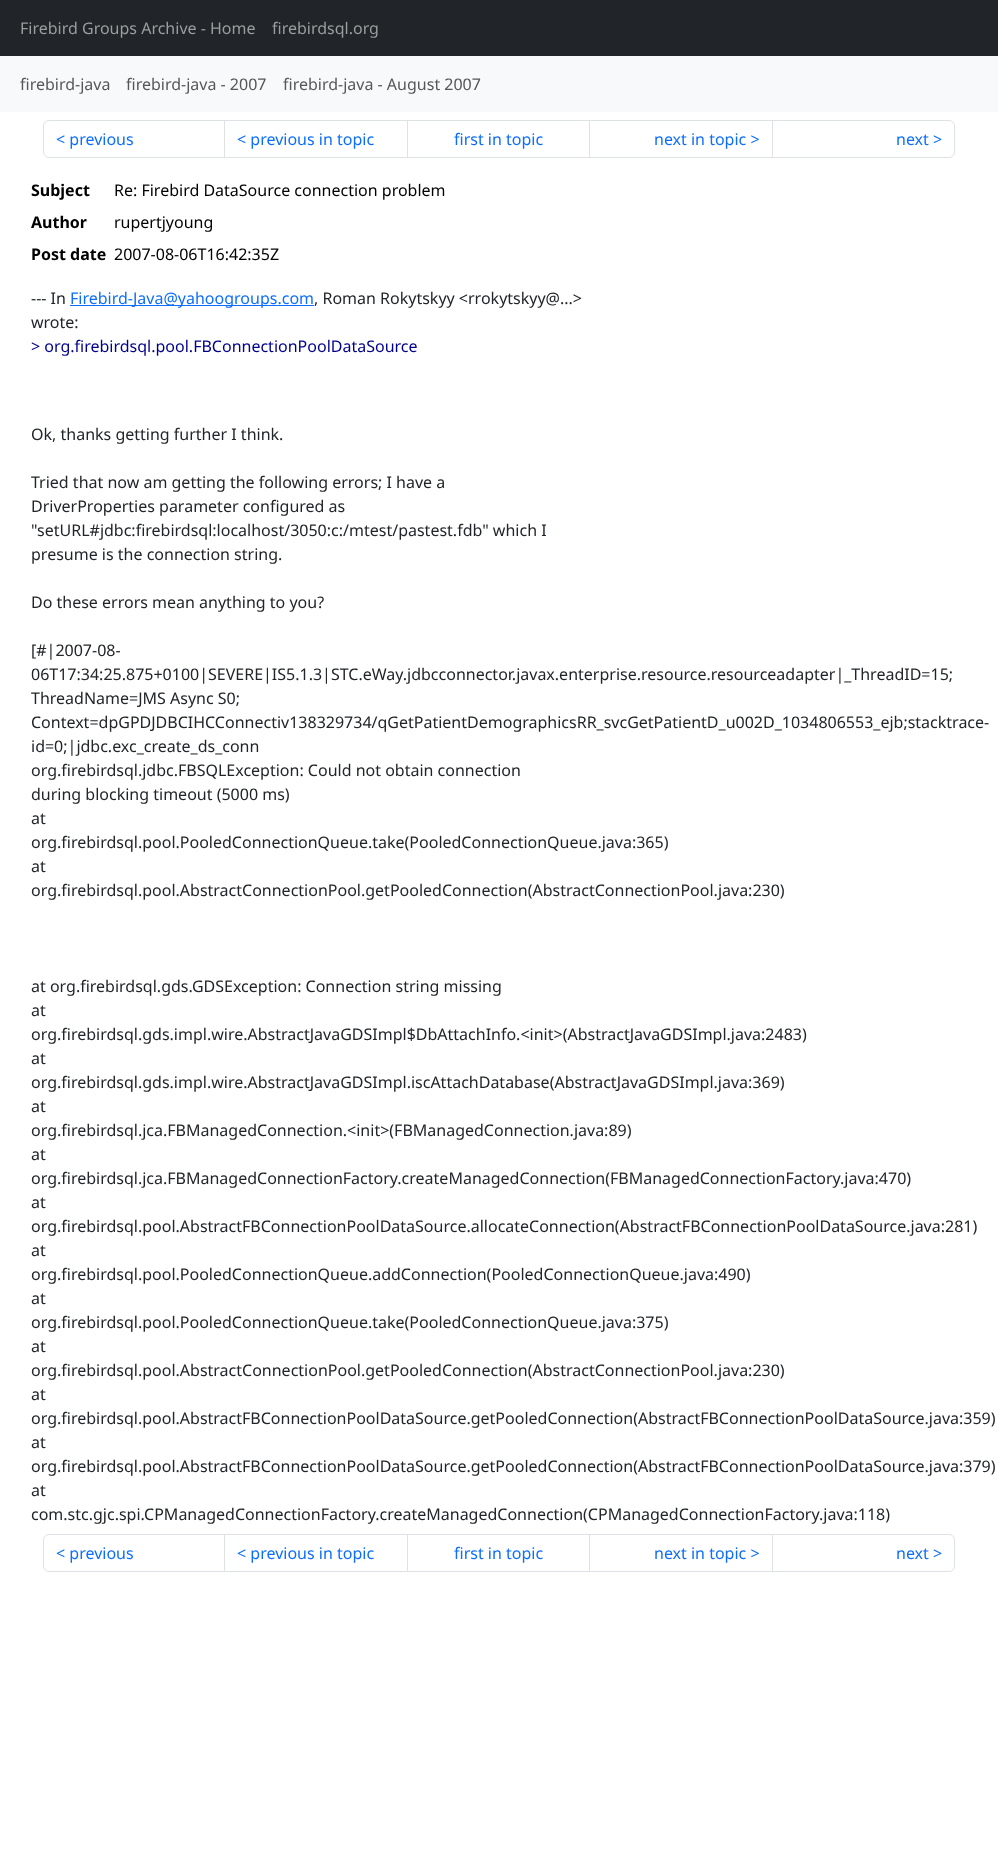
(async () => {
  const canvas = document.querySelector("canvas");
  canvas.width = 998;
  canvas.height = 1856;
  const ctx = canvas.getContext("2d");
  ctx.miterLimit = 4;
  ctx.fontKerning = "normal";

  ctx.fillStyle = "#ffffff";
  ctx.fillRect(0, 0, 998, 1856);
  ctx.fillStyle = "#212529";
  ctx.fillRect(0, 0, 998, 56);
  ctx.fillStyle = "#f8f9fa";
  ctx.fillRect(0, 56, 998, 56);
  ctx.beginPath();
  ctx.roundRect(43.5, 120.5, 181, 37, [5.5, 0, 0, 5.5]);
  ctx.strokeStyle = "#dee2e6";
  ctx.stroke();
  ctx.strokeRect(224.5, 120.5, 183, 37);
  ctx.strokeRect(407.5, 120.5, 182, 37);
  ctx.strokeRect(589.5, 120.5, 183, 37);
  ctx.fillStyle = "#ffffff";
  ctx.beginPath();
  ctx.roundRect(772.5, 120.5, 182, 37, [0, 5.5, 5.5, 0]);
  ctx.fill();
  ctx.stroke();
  ctx.fillStyle = "#0d6efd";
  ctx.fillRect(70, 305, 244, 1);
  ctx.beginPath();
  ctx.roundRect(43.5, 1534.5, 181, 37, [5.5, 0, 0, 5.5]);
  ctx.stroke();
  ctx.strokeRect(224.5, 1534.5, 183, 37);
  ctx.strokeRect(407.5, 1534.5, 182, 37);
  ctx.strokeRect(589.5, 1534.5, 183, 37);
  ctx.fillStyle = "#ffffff";
  ctx.beginPath();
  ctx.roundRect(772.5, 1534.5, 182, 37, [0, 5.5, 5.5, 0]);
  ctx.fill();
  ctx.stroke();
  ctx.font = "16px Noto Sans";
  ctx.fillStyle = "#9b9d9f";
  ctx.fillText("Firebird Groups Archive - Home", 20, 34);
  ctx.fillText("firebirdsql.org", 272, 34);
  ctx.fillStyle = "#575758";
  for (const [text, x, y] of [
    ["firebird-java", 20, 90],
    ["firebird-java - 2007", 126, 90],
    ["firebird-java - August 2007", 283, 90],
  ]) {
    ctx.fillText(text, x, y);
  }
  ctx.fillStyle = "#0d6efd";
  for (const [text, x, y] of [
    ["< previous", 56, 145],
    ["< previous in topic", 237, 145],
    ["first in topic", 454, 145],
    ["next in topic >", 654, 145],
    ["next >", 896, 145],
  ]) {
    ctx.fillText(text, x, y);
  }
  ctx.font = "bold 16px Noto Sans";
  ctx.fillStyle = "#000000";
  ctx.fillText("Subject", 31, 196);
  ctx.font = "16px Noto Sans";
  ctx.fillText("Re: Firebird DataSource connection problem", 114, 196);
  ctx.font = "bold 16px Noto Sans";
  ctx.fillText("Author", 31, 228);
  ctx.font = "16px Noto Sans";
  ctx.fillText("rupertjyoung", 114, 228);
  ctx.font = "bold 16px Noto Sans";
  ctx.fillText("Post date", 31, 260);
  ctx.font = "16px Noto Sans";
  ctx.fillText("2007-08-06T16:42:35Z", 114, 260);
  ctx.fillStyle = "#212529";
  ctx.fillText("--- In", 31, 304);
  ctx.fillStyle = "#0d6efd";
  ctx.fillText("Firebird-Java@yahoogroups.com", 70, 304);
  ctx.fillStyle = "#212529";
  ctx.fillText(", Roman Rokytskyy <rrokytskyy@...>", 314, 304);
  ctx.fillText("wrote:", 31, 328);
  ctx.fillStyle = "#00008b";
  ctx.fillText("> org.firebirdsql.pool.FBConnectionPoolDataSource", 31, 352);
  ctx.fillStyle = "#212529";
  for (const [text, x, y] of [
    ["Ok, thanks getting further I think.", 31, 440],
    ["Tried that now am getting the following errors; I have a", 31, 488],
    ["DriverProperties parameter configured as", 31, 512],
    ["\"setURL#jdbc:firebirdsql:localhost/3050:c:/mtest/pastest.fdb\" which I", 31, 536],
    ["presume is the connection string.", 31, 560],
    ["Do these errors mean anything to you?", 31, 608],
    ["[#|2007-08-", 31, 656],
    ["06T17:34:25.875+0100|SEVERE|IS5.1.3|STC.eWay.jdbcconnector.javax.enterprise.resource.resourceadapter|_ThreadID=15;", 31, 680],
    ["ThreadName=JMS Async S0;", 31, 704],
    ["Context=dpGPDJDBCIHCConnectiv138329734/qGetPatientDemographicsRR_svcGetPatientD_u002D_1034806553_ejb;stacktrace-", 31, 728],
    ["id=0;|jdbc.exc_create_ds_conn", 31, 752],
    ["org.firebirdsql.jdbc.FBSQLException: Could not obtain connection", 31, 776],
    ["during blocking timeout (5000 ms)", 31, 800],
    ["at", 31, 824],
    ["org.firebirdsql.pool.PooledConnectionQueue.take(PooledConnectionQueue.java:365)", 31, 848],
    ["at", 31, 872],
    ["org.firebirdsql.pool.AbstractConnectionPool.getPooledConnection(AbstractConnectionPool.java:230)", 31, 896],
    ["at org.firebirdsql.gds.GDSException: Connection string missing", 31, 992],
    ["at", 31, 1016],
    ["org.firebirdsql.gds.impl.wire.AbstractJavaGDSImpl$DbAttachInfo.<init>(AbstractJavaGDSImpl.java:2483)", 31, 1040],
    ["at", 31, 1064],
    ["org.firebirdsql.gds.impl.wire.AbstractJavaGDSImpl.iscAttachDatabase(AbstractJavaGDSImpl.java:369)", 31, 1088],
    ["at", 31, 1112],
    ["org.firebirdsql.jca.FBManagedConnection.<init>(FBManagedConnection.java:89)", 31, 1136],
    ["at", 31, 1160],
    ["org.firebirdsql.jca.FBManagedConnectionFactory.createManagedConnection(FBManagedConnectionFactory.java:470)", 31, 1184],
    ["at", 31, 1208],
    ["org.firebirdsql.pool.AbstractFBConnectionPoolDataSource.allocateConnection(AbstractFBConnectionPoolDataSource.java:281)", 31, 1232],
    ["at", 31, 1256],
    ["org.firebirdsql.pool.PooledConnectionQueue.addConnection(PooledConnectionQueue.java:490)", 31, 1280],
    ["at", 31, 1304],
    ["org.firebirdsql.pool.PooledConnectionQueue.take(PooledConnectionQueue.java:375)", 31, 1328],
    ["at", 31, 1352],
    ["org.firebirdsql.pool.AbstractConnectionPool.getPooledConnection(AbstractConnectionPool.java:230)", 31, 1376],
    ["at", 31, 1400],
    ["org.firebirdsql.pool.AbstractFBConnectionPoolDataSource.getPooledConnection(AbstractFBConnectionPoolDataSource.java:359)", 31, 1424],
    ["at", 31, 1448],
    ["org.firebirdsql.pool.AbstractFBConnectionPoolDataSource.getPooledConnection(AbstractFBConnectionPoolDataSource.java:379)", 31, 1472],
    ["at", 31, 1496],
    ["com.stc.gjc.spi.CPManagedConnectionFactory.createManagedConnection(CPManagedConnectionFactory.java:118)", 31, 1520],
  ]) {
    ctx.fillText(text, x, y);
  }
  ctx.fillStyle = "#0d6efd";
  for (const [text, x, y] of [
    ["< previous", 56, 1559],
    ["< previous in topic", 237, 1559],
    ["first in topic", 454, 1559],
    ["next in topic >", 654, 1559],
    ["next >", 896, 1559],
  ]) {
    ctx.fillText(text, x, y);
  }
})();
